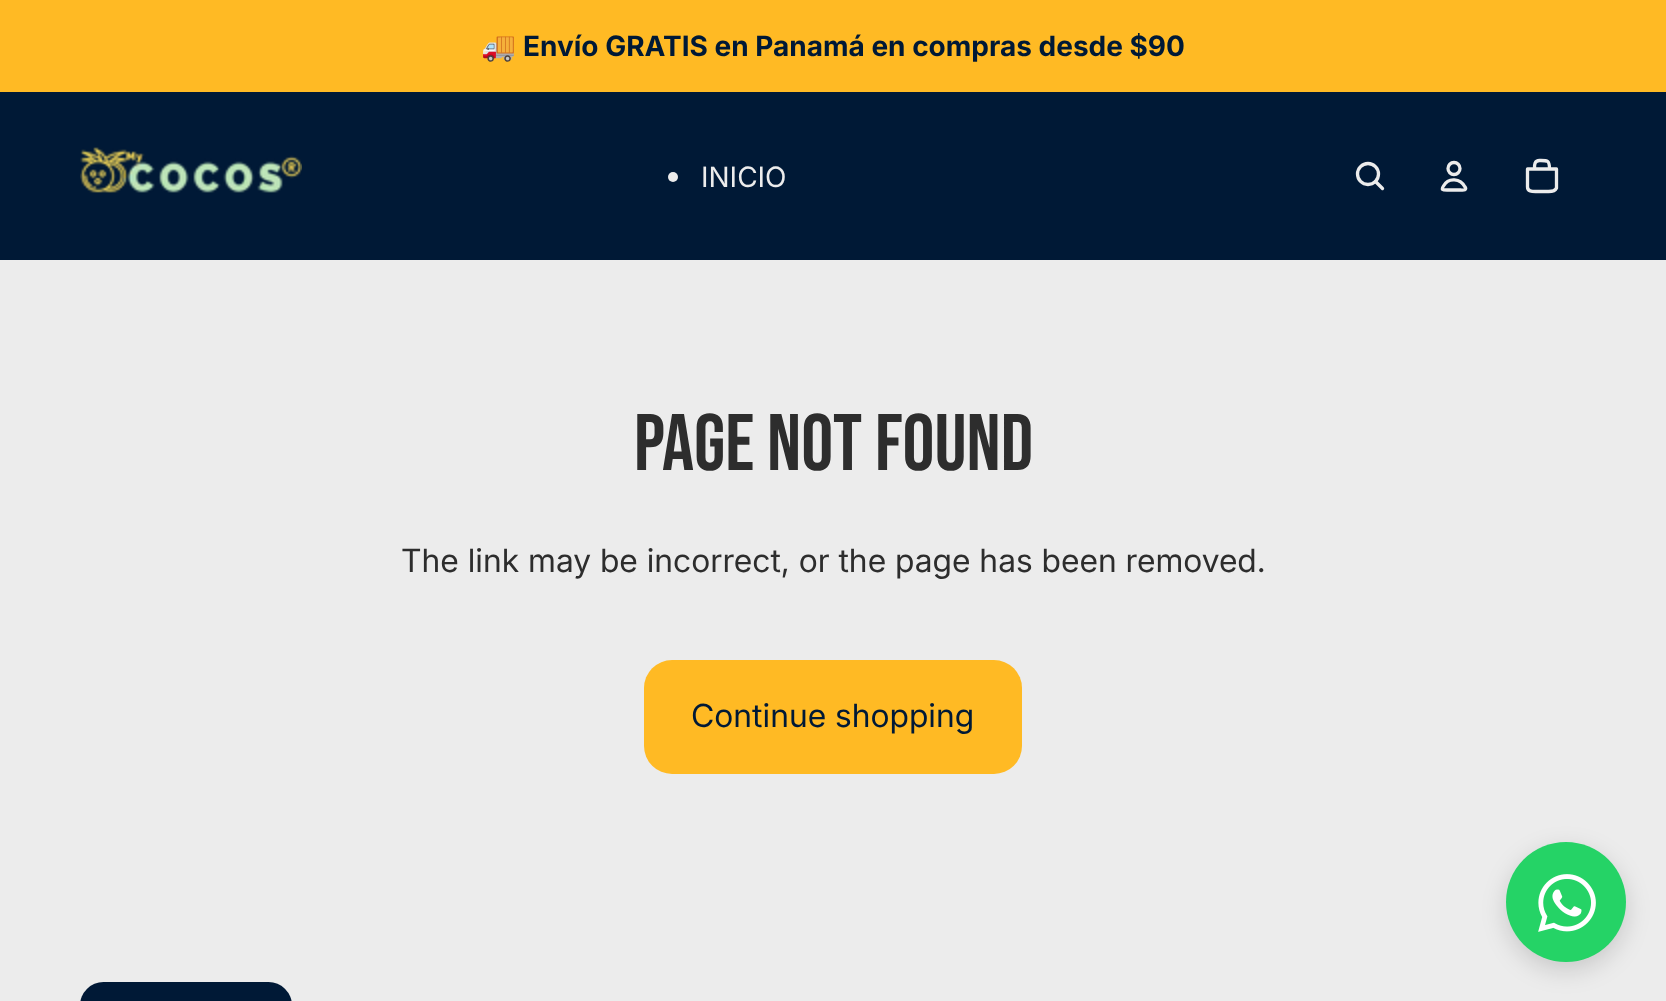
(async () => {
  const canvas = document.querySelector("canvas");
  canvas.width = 1666;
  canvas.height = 1001;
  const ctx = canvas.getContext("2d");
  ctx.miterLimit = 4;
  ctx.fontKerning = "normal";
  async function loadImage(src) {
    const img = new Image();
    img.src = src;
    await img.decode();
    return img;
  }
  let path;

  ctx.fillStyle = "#ececec";
  ctx.fillRect(0, 0, 1666, 1001);
  ctx.fillStyle = "#ffba24";
  ctx.fillRect(0, 0, 1666, 92);
  ctx.fillStyle = "#001936";
  ctx.fillRect(0, 92, 1666, 168);
  ctx.drawImage(await loadImage("img/1.png"), 80, 147, 222, 46);
  ctx.fillStyle = "#ececec";
  ctx.beginPath();
  ctx.arc(673, 177, 5, 0, Math.PI * 2);
  ctx.fill();
  ctx.beginPath();
  ctx.arc(1368, 174, 10.5, 0, Math.PI * 2);
  ctx.strokeStyle = "#ececec";
  ctx.lineWidth = 3.3;
  ctx.stroke();
  path = new Path2D("M1375.5 181.5L1382.5 188.5");
  ctx.lineCap = "round";
  ctx.lineJoin = "round";
  ctx.stroke(path);
  ctx.beginPath();
  ctx.arc(1454, 168.5, 6, 0, Math.PI * 2);
  ctx.stroke();
  path = new Path2D("M1443.5 186C1441 190 1442.5 190 1447 190H1461C1461.5 190 1465 190.5 1465.5 189C1466 188.5 1465.5 187.5 1465 187C1460.5 178.5 1448.5 177 1443.5 186");
  ctx.stroke(path);
  path = new Path2D("M1527.5 169H1556.5V188C1555 191.5 1551.5 191.5 1548.5 191.5H1535.5C1532 191.5 1527.5 191.5 1527.5 187ZM1539.5 160.5C1547.5 160.5 1549.5 160 1549.5 169H1534.5C1534.5 165.5 1534 160.5 1539.5 160.5");
  ctx.stroke(path);
  ctx.fillStyle = "#ffba24";
  ctx.beginPath();
  ctx.roundRect(644, 660, 378, 114, 28);
  ctx.fill();
  ctx.fillStyle = "#001936";
  ctx.beginPath();
  ctx.roundRect(80, 982, 212, 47, 28);
  ctx.fill();
  ctx.fillStyle = "rgba(0, 0, 0, 0.15)";
  ctx.filter = "blur(12px)";
  ctx.beginPath();
  ctx.roundRect(1506, 850, 120, 120, 60);
  ctx.fill();
  ctx.filter = "none";
  ctx.fillStyle = "#25d366";
  ctx.beginPath();
  ctx.arc(1566, 902, 60, 0, Math.PI * 2);
  ctx.fill();
  ctx.drawImage(await loadImage("img/2.png"), 1538, 874, 58, 58);
  ctx.font = "28px Noto Color Emoji";
  ctx.fillStyle = "#001936";
  ctx.fillText("🚚", 481, 56);
  ctx.font = "bold 28px Inter";
  ctx.fillText("Envío GRATIS en Panamá en compras desde $90", 523, 56);
  ctx.font = "28px 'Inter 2'";
  ctx.fillStyle = "#ececec";
  ctx.fillText("INICIO", 701, 187);
  ctx.font = "80px Bebas Neue";
  ctx.fillStyle = "#2d2d2d";
  ctx.fillText("PAGE NOT FOUND", 634, 470);
  ctx.font = "32px Inter";
  ctx.fillText("The link may be incorrect, or the page has been removed.", 401, 572);
  ctx.fillStyle = "#001936";
  ctx.fillText("Continue shopping", 691, 727);
})();
